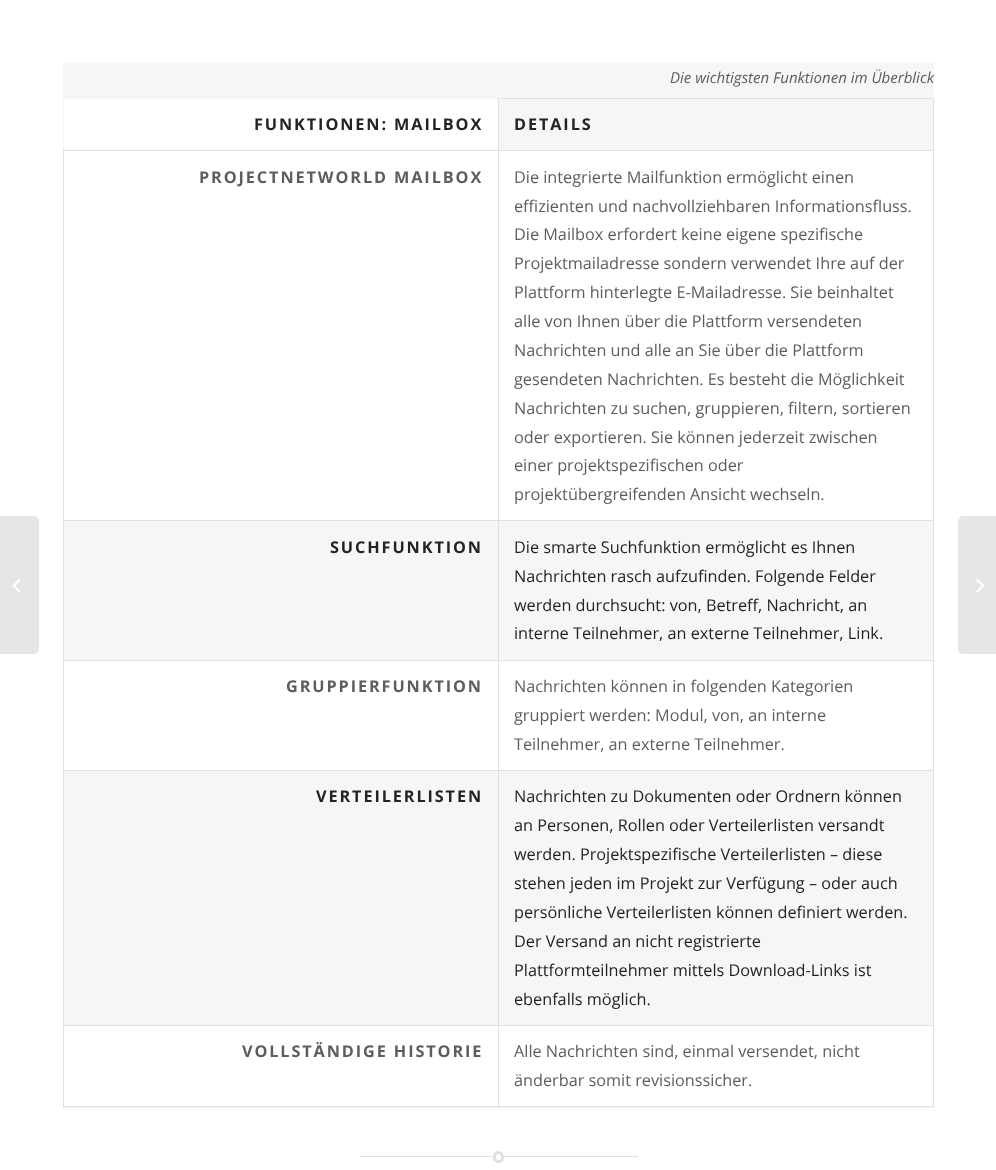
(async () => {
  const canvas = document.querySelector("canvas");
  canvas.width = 996;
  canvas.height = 1170;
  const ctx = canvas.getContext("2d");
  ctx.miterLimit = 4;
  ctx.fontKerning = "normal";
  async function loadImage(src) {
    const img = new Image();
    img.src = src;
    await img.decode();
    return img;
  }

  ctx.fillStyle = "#ffffff";
  ctx.fillRect(0, 0, 996, 1170);
  ctx.fillStyle = "#e6e6e6";
  ctx.beginPath();
  ctx.roundRect(0, 516, 39, 138, [0, 5, 5, 0]);
  ctx.fill();
  ctx.drawImage(await loadImage("img/1.png"), 12, 579, 9, 14);
  for (const [x, y, w, h, color] of [
    [63, 63, 871, 1045, "#f5f6f5"],
    [64, 99, 434, 51, "#ffffff"],
    [498, 98, 436, 1, "#e1e1e1"],
    [933, 150, 1, 958, "#e1e1e1"],
    [933, 98, 1, 53, "#e1e1e1"],
    [64, 151, 869, 369, "#ffffff"],
    [64, 661, 869, 109, "#ffffff"],
    [64, 1026, 869, 80, "#ffffff"],
    [498, 1106, 436, 1, "#e1e1e1"],
    [498, 1025, 1, 83, "#e1e1e1"],
    [498, 1025, 436, 1, "#e1e1e1"],
    [498, 770, 1, 256, "#e1e1e1"],
    [498, 770, 436, 1, "#e1e1e1"],
    [498, 660, 1, 111, "#e1e1e1"],
    [498, 660, 436, 1, "#e1e1e1"],
    [498, 520, 1, 141, "#e1e1e1"],
    [498, 520, 436, 1, "#e1e1e1"],
    [498, 150, 1, 371, "#e1e1e1"],
    [498, 150, 436, 1, "#e1e1e1"],
    [498, 98, 1, 53, "#e1e1e1"],
    [63, 1106, 436, 1, "#e1e1e1"],
    [63, 1025, 1, 83, "#e1e1e1"],
    [63, 1025, 436, 1, "#e1e1e1"],
    [63, 770, 1, 256, "#e1e1e1"],
    [63, 770, 436, 1, "#e1e1e1"],
    [63, 660, 1, 111, "#e1e1e1"],
    [63, 660, 436, 1, "#e1e1e1"],
    [63, 520, 1, 141, "#e1e1e1"],
    [63, 520, 436, 1, "#e1e1e1"],
    [63, 150, 1, 371, "#e1e1e1"],
    [63, 150, 436, 1, "#e1e1e1"],
    [359, 1156, 279, 1, "#e1e1e1"],
  ]) {
    ctx.fillStyle = color;
    ctx.fillRect(x, y, w, h);
  }
  ctx.fillStyle = "#ffffff";
  ctx.beginPath();
  ctx.roundRect(494.5, 1152.5, 8, 9, 4);
  ctx.fill();
  ctx.strokeStyle = "#e1e1e1";
  ctx.lineWidth = 3;
  ctx.stroke();
  ctx.fillStyle = "#e6e6e6";
  ctx.beginPath();
  ctx.roundRect(958, 516, 38, 138, [5, 0, 0, 5]);
  ctx.fill();
  ctx.drawImage(await loadImage("img/2.png"), 976, 579, 8, 14);
  ctx.font = "italic 15px Open Sans";
  ctx.fillStyle = "#5d5d60";
  ctx.fillText("Die wichtigsten Funktionen im Überblick", 670, 83);
  ctx.letterSpacing = "1.9px";
  ctx.font = "bold 16.25px Open Sans";
  ctx.fillStyle = "#262223";
  ctx.fillText("FUNKTIONEN: MAILBOX", 254, 130);
  ctx.fillText("DETAILS", 514, 130);
  ctx.fillStyle = "#5d5d60";
  ctx.fillText("PROJECTNETWORLD MAILBOX", 199, 183);
  ctx.letterSpacing = "0px";
  ctx.font = "16.25px Open Sans";
  for (const [text, x, y] of [
    ["Die integrierte Mailfunktion ermöglicht einen", 514, 183],
    ["effizienten und nachvollziehbaren Informationsfluss.", 514, 212],
    ["Die Mailbox erfordert keine eigene spezifische", 514, 240],
    ["Projektmailadresse sondern verwendet Ihre auf der", 514, 269],
    ["Plattform hinterlegte E-Mailadresse. Sie beinhaltet", 514, 298],
    ["alle von Ihnen über die Plattform versendeten", 514, 327],
    ["Nachrichten und alle an Sie über die Plattform", 514, 356],
    ["gesendeten Nachrichten. Es besteht die Möglichkeit", 514, 385],
    ["Nachrichten zu suchen, gruppieren, filtern, sortieren", 514, 414],
    ["oder exportieren. Sie können jederzeit zwischen", 514, 443],
    ["einer projektspezifischen oder", 514, 471],
    ["projektübergreifenden Ansicht wechseln.", 514, 500],
  ]) {
    ctx.fillText(text, x, y);
  }
  ctx.letterSpacing = "1.9px";
  ctx.font = "bold 16.25px Open Sans";
  ctx.fillStyle = "#262223";
  ctx.fillText("SUCHFUNKTION", 330, 553);
  ctx.letterSpacing = "0px";
  ctx.font = "16.25px Open Sans";
  for (const [text, x, y] of [
    ["Die smarte Suchfunktion ermöglicht es Ihnen", 514, 553],
    ["Nachrichten rasch aufzufinden. Folgende Felder", 514, 582],
    ["werden durchsucht: von, Betreff, Nachricht, an", 514, 611],
    ["interne Teilnehmer, an externe Teilnehmer, Link.", 514, 639],
  ]) {
    ctx.fillText(text, x, y);
  }
  ctx.letterSpacing = "1.9px";
  ctx.font = "bold 16.25px Open Sans";
  ctx.fillStyle = "#5d5d60";
  ctx.fillText("GRUPPIERFUNKTION", 286, 692);
  ctx.letterSpacing = "0px";
  ctx.font = "16.25px Open Sans";
  for (const [text, x, y] of [
    ["Nachrichten können in folgenden Kategorien", 514, 692],
    ["gruppiert werden: Modul, von, an interne", 514, 721],
    ["Teilnehmer, an externe Teilnehmer.", 514, 750],
  ]) {
    ctx.fillText(text, x, y);
  }
  ctx.letterSpacing = "1.9px";
  ctx.font = "bold 16.25px Open Sans";
  ctx.fillStyle = "#262223";
  ctx.fillText("VERTEILERLISTEN", 316, 802);
  ctx.letterSpacing = "0px";
  ctx.font = "16.25px Open Sans";
  for (const [text, x, y] of [
    ["Nachrichten zu Dokumenten oder Ordnern können", 514, 802],
    ["an Personen, Rollen oder Verteilerlisten versandt", 514, 831],
    ["werden. Projektspezifische Verteilerlisten – diese", 514, 860],
    ["stehen jeden im Projekt zur Verfügung – oder auch", 514, 889],
    ["persönliche Verteilerlisten können definiert werden.", 514, 918],
    ["Der Versand an nicht registrierte", 514, 947],
    ["Plattformteilnehmer mittels Download-Links ist", 514, 976],
    ["ebenfalls möglich.", 514, 1005],
  ]) {
    ctx.fillText(text, x, y);
  }
  ctx.letterSpacing = "1.9px";
  ctx.font = "bold 16.25px Open Sans";
  ctx.fillStyle = "#5d5d60";
  ctx.fillText("VOLLSTÄNDIGE HISTORIE", 242, 1057);
  ctx.letterSpacing = "0px";
  ctx.font = "16.25px Open Sans";
  ctx.fillText("Alle Nachrichten sind, einmal versendet, nicht", 514, 1057);
  ctx.fillText("änderbar somit revisionssicher.", 514, 1086);
})();
